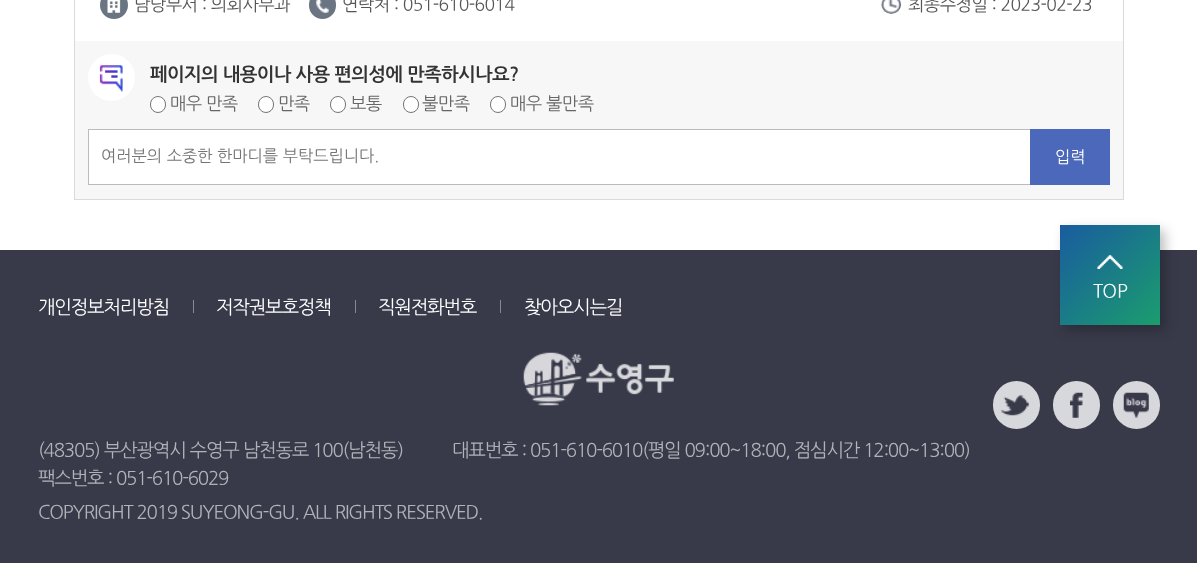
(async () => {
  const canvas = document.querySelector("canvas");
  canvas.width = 1197;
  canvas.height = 563;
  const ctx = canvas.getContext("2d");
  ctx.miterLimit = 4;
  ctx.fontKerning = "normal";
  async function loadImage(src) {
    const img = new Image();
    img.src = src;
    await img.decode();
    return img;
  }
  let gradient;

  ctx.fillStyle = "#ffffff";
  ctx.fillRect(0, 0, 1197, 563);
  ctx.strokeStyle = "#dadada";
  ctx.strokeRect(74.5, -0.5, 1049, 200);
  ctx.fillStyle = "#6b7482";
  ctx.beginPath();
  ctx.arc(114, 5, 14, 0, Math.PI * 2);
  ctx.fill();
  ctx.drawImage(await loadImage("img/1.png"), 107, 0, 14, 13);
  ctx.beginPath();
  ctx.roundRect(309, -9, 27, 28, 13.5);
  ctx.fill();
  ctx.drawImage(await loadImage("img/2.png"), 316, 0, 13, 13);
  ctx.drawImage(await loadImage("img/3.png"), 881, 0, 21, 14);
  ctx.fillStyle = "#f7f7f7";
  ctx.fillRect(75, 41, 1048, 158);
  ctx.fillStyle = "#ffffff";
  ctx.beginPath();
  ctx.arc(111.5, 77.5, 23.5, 0, Math.PI * 2);
  ctx.fill();
  ctx.drawImage(await loadImage("img/4.png"), 99, 65, 24, 27);
  ctx.beginPath();
  ctx.roundRect(150.5, 96.5, 15, 16, 7.5);
  ctx.fill();
  ctx.strokeStyle = "#767676";
  ctx.stroke();
  ctx.beginPath();
  ctx.roundRect(258.5, 96.5, 15, 16, 7.5);
  ctx.fill();
  ctx.stroke();
  ctx.beginPath();
  ctx.roundRect(330.5, 96.5, 15, 16, 7.5);
  ctx.fill();
  ctx.stroke();
  ctx.beginPath();
  ctx.roundRect(403.5, 96.5, 15, 16, 7.5);
  ctx.fill();
  ctx.stroke();
  ctx.beginPath();
  ctx.roundRect(490.5, 96.5, 15, 16, 7.5);
  ctx.fill();
  ctx.stroke();
  ctx.fillRect(89, 130, 941, 54);
  ctx.strokeStyle = "#bbbbbb";
  ctx.strokeRect(88.5, 129.5, 1021, 55);
  ctx.fillStyle = "#4b68ba";
  ctx.fillRect(1030, 129, 80, 56);
  ctx.fillStyle = "#383a4a";
  ctx.fillRect(0, 250, 1197, 313);
  ctx.fillStyle = "rgba(0, 0, 0, 0.25)";
  ctx.filter = "blur(6px)";
  ctx.beginPath();
  ctx.rect(1065, 230, 100, 100);
  ctx.fill();
  ctx.filter = "none";
  gradient = ctx.createLinearGradient(1060, 225, 1160, 325);
  gradient.addColorStop(0, "#195c9f");
  gradient.addColorStop(1, "#1b9d6e");
  ctx.fillStyle = gradient;
  ctx.fillRect(1060, 225, 100, 100);
  ctx.drawImage(await loadImage("img/5.png"), 1097, 255, 26, 14);
  for (const [x, y, w, h, color] of [
    [193, 300, 1, 13, "#888992"],
    [355, 300, 1, 13, "#888992"],
    [500, 300, 1, 13, "#888992"],
  ]) {
    ctx.fillStyle = color;
    ctx.fillRect(x, y, w, h);
  }
  ctx.drawImage(await loadImage("img/6.png"), 523, 352, 151, 54);
  ctx.fillStyle = "#d7d8db";
  ctx.beginPath();
  ctx.roundRect(993, 381, 47, 48, 23.5);
  ctx.fill();
  ctx.drawImage(await loadImage("img/7.png"), 1001, 395, 28, 21);
  ctx.beginPath();
  ctx.roundRect(1053, 381, 47, 48, 23.5);
  ctx.fill();
  ctx.drawImage(await loadImage("img/8.png"), 1070, 392, 13, 26);
  ctx.beginPath();
  ctx.roundRect(1113, 381, 47, 48, 23.5);
  ctx.fill();
  ctx.drawImage(await loadImage("img/9.png"), 1123, 392, 26, 26);
  ctx.letterSpacing = "-0.6px";
  ctx.font = "17.5px NanumGothic";
  ctx.fillStyle = "#555555";
  for (const [text, x, y] of [
    ["담당부서 : 의회사무과", 134, 10],
    ["연락처 : 051-610-6014", 342, 10],
    ["최종수정일 : 2023-02-23", 908, 10],
  ]) {
    ctx.fillText(text, x, y);
  }
  ctx.font = "bold 18.75px NanumGothic";
  ctx.fillStyle = "#333333";
  ctx.fillText("페이지의 내용이나 사용 편의성에 만족하시나요?", 150, 80);
  ctx.font = "17.5px NanumGothic";
  ctx.fillStyle = "#666666";
  for (const [text, x, y] of [
    ["매우 만족", 170, 109],
    ["만족", 278, 109],
    ["보통", 350, 109],
    ["불만족", 422, 109],
    ["매우 불만족", 510, 109],
  ]) {
    ctx.fillText(text, x, y);
  }
  ctx.letterSpacing = "0px";
  ctx.font = "16.25px NanumGothic";
  ctx.fillStyle = "#757575";
  ctx.fillText("여러분의 소중한 한마디를 부탁드립니다.", 101, 161);
  ctx.fillStyle = "#ffffff";
  ctx.fillText("입력", 1055, 162);
  ctx.font = "18.75px NanumGothic";
  ctx.fillText("TOP", 1093, 297);
  ctx.letterSpacing = "-1.25px";
  for (const [text, x, y] of [
    ["개인정보처리방침", 38, 313],
    ["저작권보호정책", 216, 313],
    ["직원전화번호", 378, 313],
    ["찾아오시는길", 524, 313],
  ]) {
    ctx.fillText(text, x, y);
  }
  ctx.fillStyle = "#b2b2b8";
  for (const [text, x, y] of [
    ["(48305) 부산광역시 수영구 남천동로 100(남천동)", 38, 456],
    ["대표번호 : 051-610-6010(평일 09:00~18:00, 점심시간 12:00~13:00)", 452, 456],
    ["팩스번호 : 051-610-6029", 38, 484],
    ["COPYRIGHT 2019 SUYEONG-GU. ALL RIGHTS RESERVED.", 38, 518],
  ]) {
    ctx.fillText(text, x, y);
  }
})();
